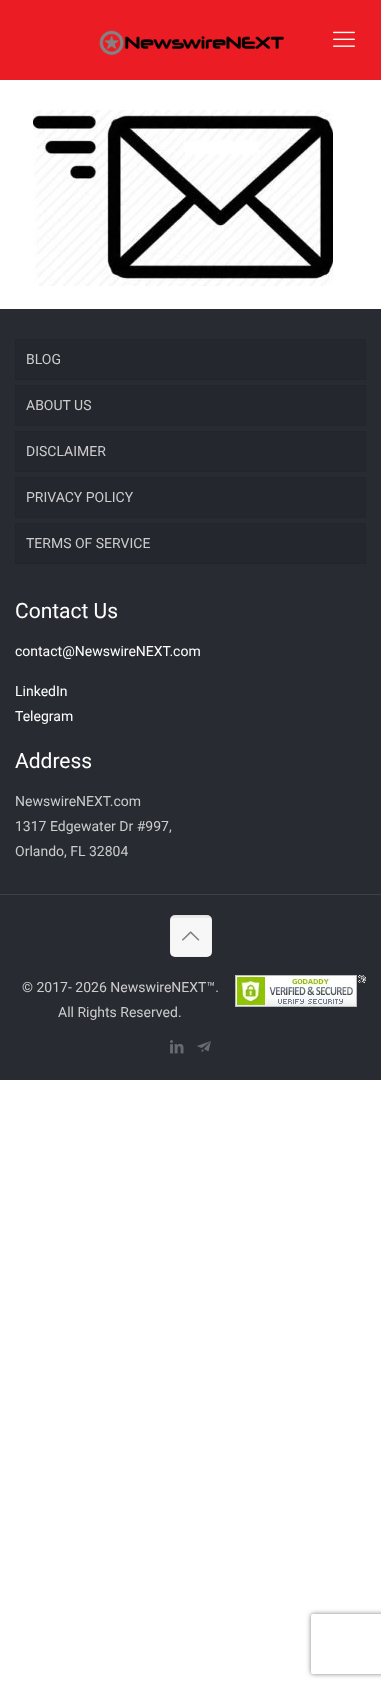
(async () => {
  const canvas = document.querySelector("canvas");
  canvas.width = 381;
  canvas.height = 1688;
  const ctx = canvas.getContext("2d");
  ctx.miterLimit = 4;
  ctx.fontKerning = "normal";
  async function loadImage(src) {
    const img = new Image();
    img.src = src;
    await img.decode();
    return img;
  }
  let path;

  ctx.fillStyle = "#ffffff";
  ctx.fillRect(0, 0, 381, 1688);
  ctx.fillStyle = "#ec1c24";
  ctx.fillRect(0, 0, 381, 80);
  ctx.drawImage(await loadImage("img/1.png"), 99, 30, 185, 26);
  ctx.drawImage(await loadImage("img/2.png"), 333, 31, 22, 16);
  ctx.drawImage(await loadImage("img/3.png"), 33, 110, 300, 176);
  ctx.fillStyle = "#292b33";
  ctx.fillRect(0, 309, 381, 771);
  ctx.fillStyle = "#25272e";
  ctx.beginPath();
  ctx.rect(15.5, 339.5, 350, 40);
  ctx.fill();
  ctx.strokeStyle = "#24252c";
  ctx.stroke();
  ctx.beginPath();
  ctx.rect(15.5, 385.5, 350, 40);
  ctx.fill();
  ctx.stroke();
  ctx.beginPath();
  ctx.rect(15.5, 431.5, 350, 40);
  ctx.fill();
  ctx.stroke();
  ctx.beginPath();
  ctx.rect(15.5, 477.5, 350, 40);
  ctx.fill();
  ctx.stroke();
  ctx.beginPath();
  ctx.rect(15.5, 523.5, 350, 40);
  ctx.fill();
  ctx.stroke();
  ctx.fillStyle = "#3e4047";
  ctx.fillRect(0, 894, 381, 1);
  ctx.fillStyle = "#f7f7f7";
  ctx.beginPath();
  ctx.roundRect(170, 915, 42, 42, 5);
  ctx.fill();
  ctx.fillStyle = "rgba(0, 0, 0, 0.05)";
  ctx.fillRect(171, 915, 40, 3);
  ctx.strokeStyle = "rgba(0, 0, 0, 0.03)";
  ctx.strokeRect(170.5, 915.5, 41, 41);
  ctx.drawImage(await loadImage("img/4.png"), 182, 931, 18, 10);
  ctx.drawImage(await loadImage("img/5.png"), 235, 975, 131, 32);
  ctx.drawImage(await loadImage("img/6.png"), 170, 1040, 14, 14);
  ctx.drawImage(await loadImage("img/7.png"), 197, 1041, 14, 12);
  ctx.save();
  path = new Path2D("M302 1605H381V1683H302ZM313 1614H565C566 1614 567 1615 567 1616V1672C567 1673 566 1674 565 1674H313C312 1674 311 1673 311 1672V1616C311 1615 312 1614 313 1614Z");
  ctx.clip(path, "evenodd");
  ctx.fillStyle = "#808080";
  ctx.filter = "blur(2.5px)";
  ctx.beginPath();
  ctx.roundRect(311, 1614, 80, 60, 2);
  ctx.fill();
  ctx.filter = "none";
  ctx.restore();
  ctx.font = "14px Roboto";
  ctx.fillStyle = "#cccccc";
  for (const [text, x, y] of [
    ["BLOG", 26, 364],
    ["ABOUT US", 26, 410],
    ["DISCLAIMER", 26, 456],
    ["PRIVACY POLICY", 26, 502],
    ["TERMS OF SERVICE", 26, 548],
  ]) {
    ctx.fillText(text, x, y);
  }
  ctx.font = "21px Roboto";
  ctx.fillStyle = "#ffffff";
  ctx.fillText("Contact Us", 15, 618);
  ctx.font = "14px Roboto";
  for (const [text, x, y] of [
    ["contact@NewswireNEXT.com", 15, 656],
    ["LinkedIn", 15, 696],
    ["Telegram", 15, 721],
  ]) {
    ctx.fillText(text, x, y);
  }
  ctx.font = "21px Roboto";
  ctx.fillText("Address", 15, 768);
  ctx.font = "14px Roboto";
  ctx.fillStyle = "#cccccc";
  for (const [text, x, y] of [
    ["NewswireNEXT.com", 15, 806],
    ["1317 Edgewater Dr #997,", 15, 831],
    ["Orlando, FL 32804", 15, 856],
    ["© 2017- 2026 NewswireNEXT™.", 22, 992],
    ["All Rights Reserved.", 58, 1017],
  ]) {
    ctx.fillText(text, x, y);
  }
})();
